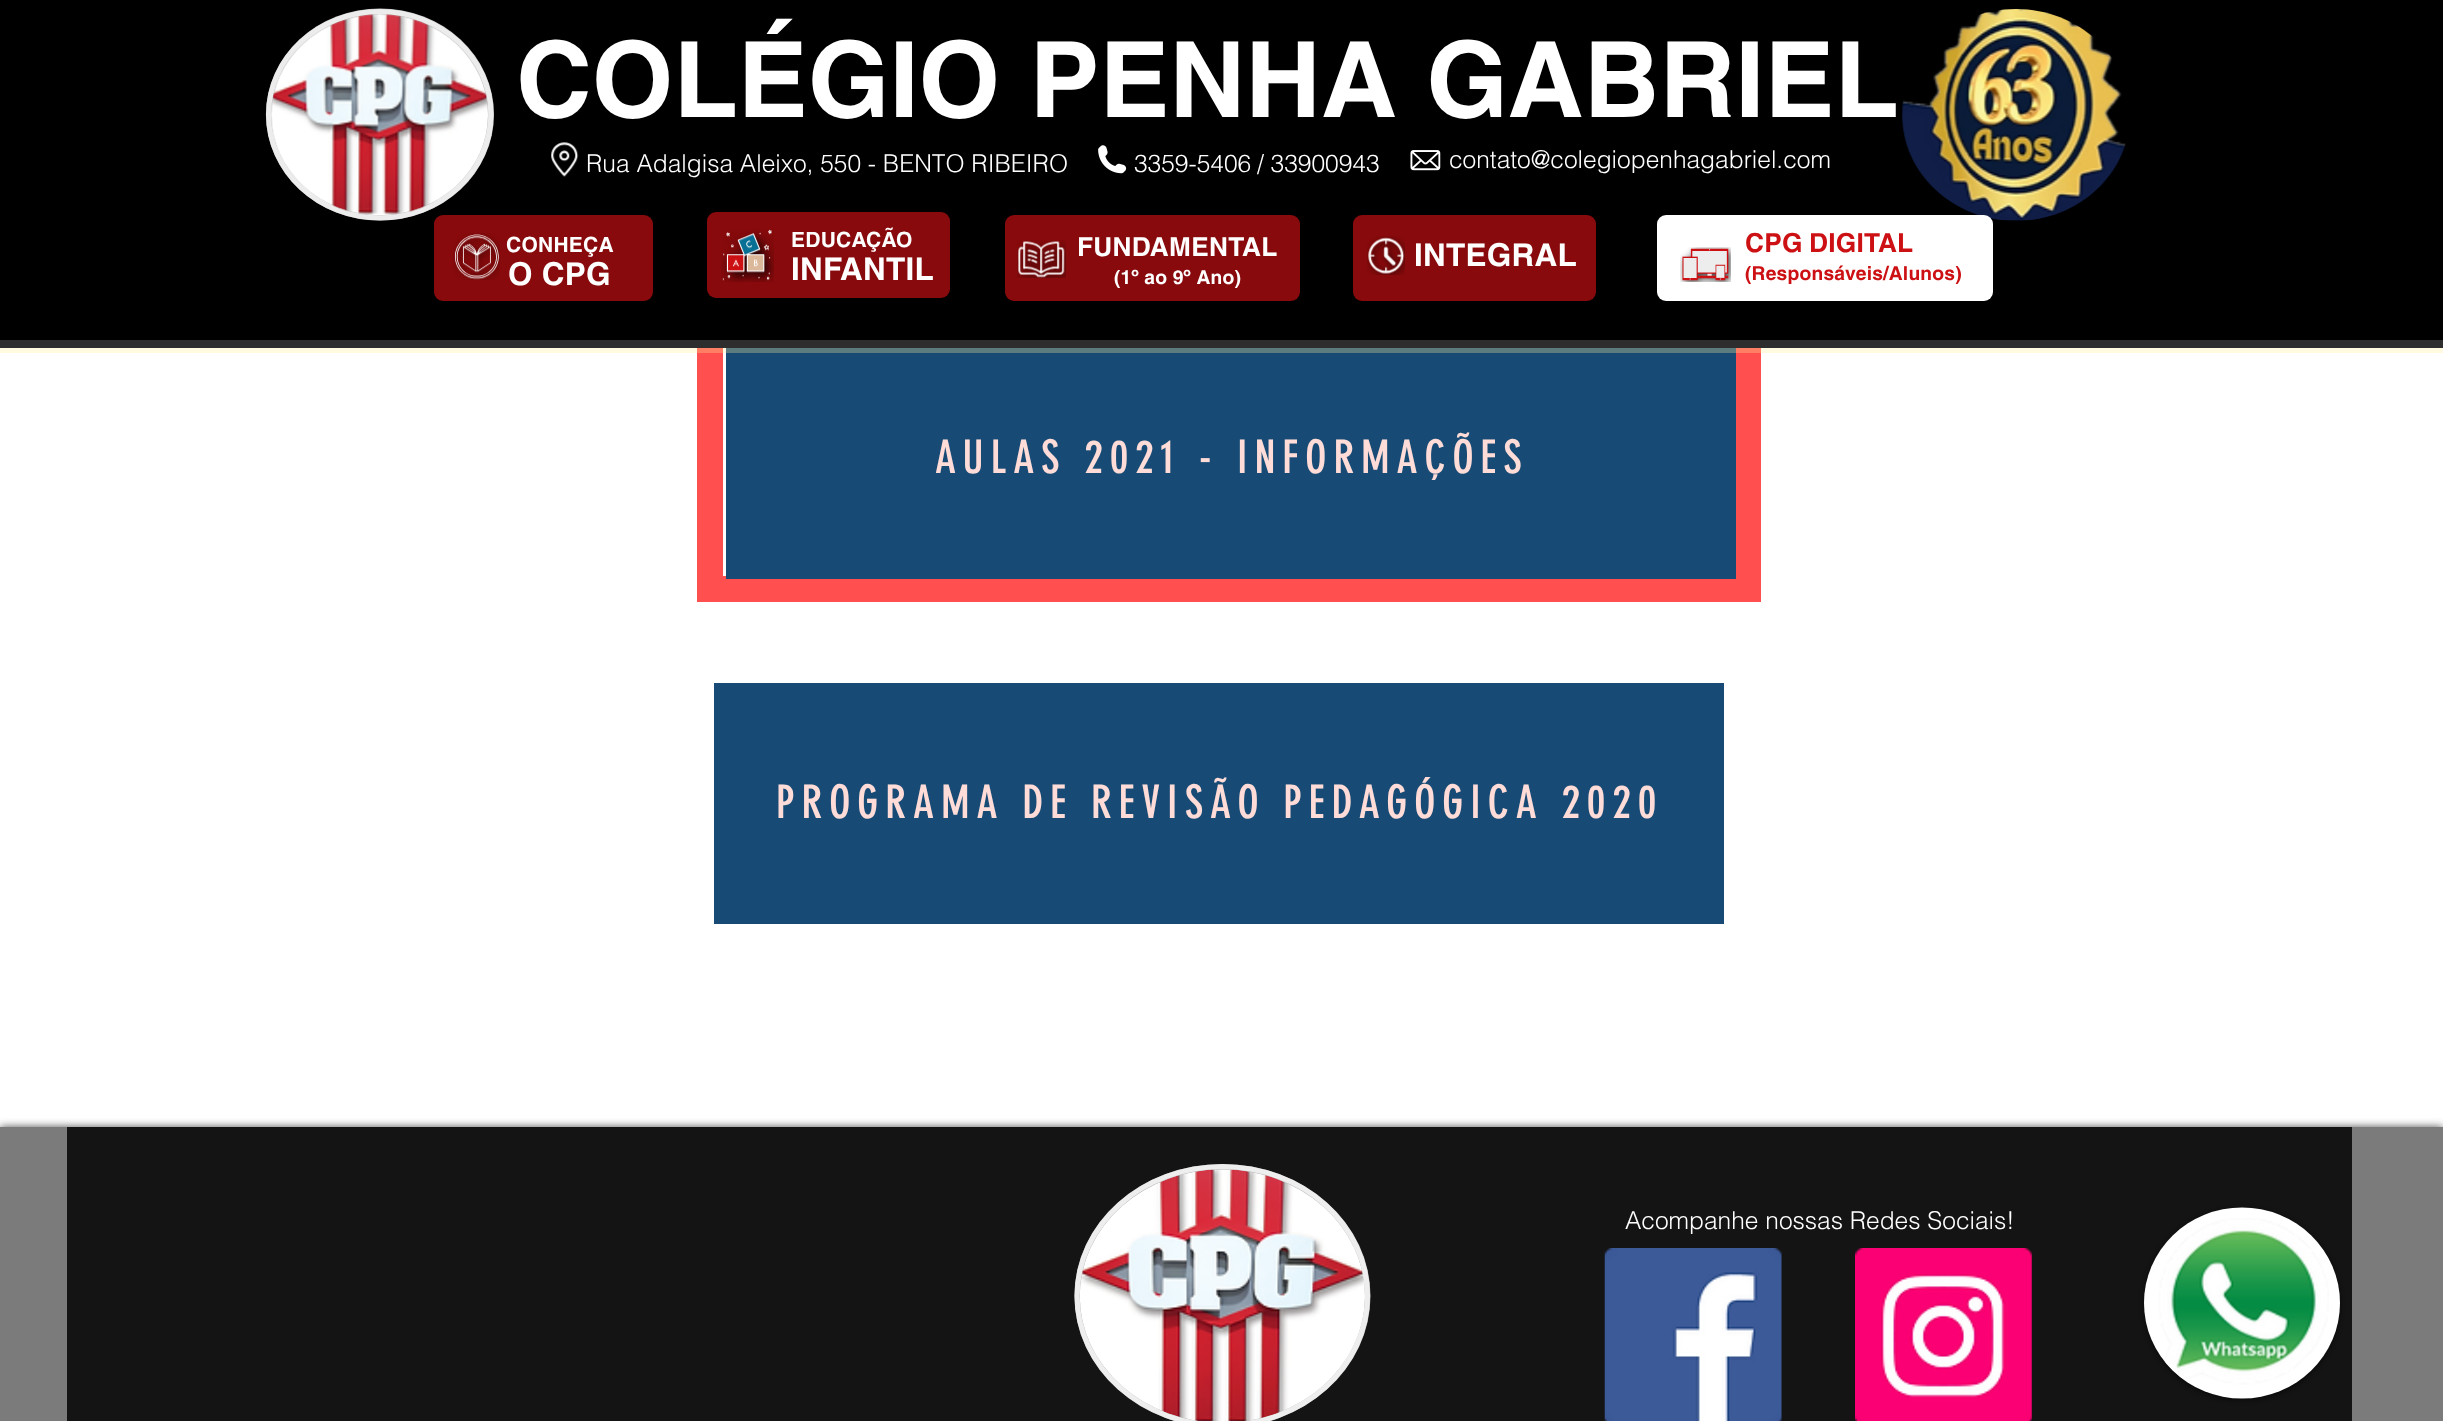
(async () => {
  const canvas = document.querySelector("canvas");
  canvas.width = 2443;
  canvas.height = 1421;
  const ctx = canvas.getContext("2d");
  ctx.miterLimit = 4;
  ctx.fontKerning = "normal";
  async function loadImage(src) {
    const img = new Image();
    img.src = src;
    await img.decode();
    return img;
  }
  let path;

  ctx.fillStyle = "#ffffff";
  ctx.fillRect(0, 0, 2443, 1421);
  ctx.strokeStyle = "#ff4f4f";
  ctx.lineWidth = 26;
  ctx.strokeRect(710, 326, 1038, 263);
  ctx.fillStyle = "#2f2e2e";
  ctx.fillRect(0, 340, 2443, 8);
  ctx.fillStyle = "#000000";
  ctx.fillRect(0, 0, 2443, 340);
  ctx.fillStyle = "#bababa";
  ctx.beginPath();
  ctx.ellipse(380, 114.5, 114, 106, 0, 0, Math.PI * 2);
  ctx.fill();
  path = new Path2D("M380 11.5C441 11.5 491 57.5 491 114.5C491 171.5 441 218 380 218C318.5 218 268.5 171.5 268.5 114.5C268.5 57.5 318.5 11.5 380 11.5Z");
  ctx.strokeStyle = "rgba(255, 255, 255, 0.73)";
  ctx.lineWidth = 5.2;
  ctx.stroke(path);
  ctx.drawImage(await loadImage("img/1.png"), 271, 14, 218, 202);
  ctx.drawImage(await loadImage("img/2.png"), 1902, 9, 224, 212);
  ctx.drawImage(await loadImage("img/3.png"), 551, 142, 28, 35);
  ctx.drawImage(await loadImage("img/4.png"), 1098, 145, 29, 29);
  ctx.drawImage(await loadImage("img/5.png"), 1410, 150, 31, 21);
  ctx.fillStyle = "#880a0c";
  ctx.beginPath();
  ctx.roundRect(434, 215, 219, 86, 9);
  ctx.fill();
  ctx.drawImage(await loadImage("img/6.png"), 453, 233, 47, 47);
  ctx.beginPath();
  ctx.roundRect(707, 212, 243, 86, 9);
  ctx.fill();
  ctx.drawImage(await loadImage("img/7.png"), 721, 229, 53, 53);
  ctx.beginPath();
  ctx.roundRect(1005, 215, 295, 86, 9);
  ctx.fill();
  ctx.drawImage(await loadImage("img/8.png"), 1017, 240, 49, 38);
  ctx.beginPath();
  ctx.roundRect(1353, 215, 243, 86, 9);
  ctx.fill();
  ctx.drawImage(await loadImage("img/9.png"), 1367, 236, 38, 39);
  ctx.fillStyle = "#ffffff";
  ctx.beginPath();
  ctx.roundRect(1657, 215, 336, 86, 9);
  ctx.fill();
  ctx.drawImage(await loadImage("img/10.png"), 1680, 247, 51, 35);
  for (const [x, y, w, h, color] of [
    [726, 348, 1010, 231, "#174b75"],
    [0, 348, 2443, 5, "rgba(255, 239, 152, 0.3)"],
    [714, 683, 1010, 241, "#174b75"],
  ]) {
    ctx.fillStyle = color;
    ctx.fillRect(x, y, w, h);
  }
  ctx.fillStyle = "rgba(0, 0, 0, 0.7)";
  ctx.filter = "blur(4.5px)";
  ctx.beginPath();
  ctx.rect(0, 1127, 2443, 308);
  ctx.fill();
  ctx.filter = "none";
  ctx.fillStyle = "#7c7b7b";
  ctx.fillRect(0, 1127, 2443, 294);
  ctx.fillStyle = "#141414";
  ctx.fillRect(67, 1127, 2285, 294);
  ctx.fillStyle = "rgba(255, 255, 255, 0.73)";
  ctx.beginPath();
  ctx.ellipse(1222.5, 1296, 148, 132, 0, 0, Math.PI * 2);
  ctx.fill();
  path = new Path2D("M1222.5 1166.5C1302.5 1166.5 1367.5 1224.5 1367.5 1296C1367.5 1367.5 1302.5 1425.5 1222.5 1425.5C1142 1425.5 1077 1367.5 1077 1296C1077 1224.5 1142 1166.5 1222.5 1166.5Z");
  ctx.stroke(path);
  ctx.drawImage(await loadImage("img/11.png"), 1080, 1169, 285, 252);
  ctx.drawImage(await loadImage("img/12.png"), 1604, 1248, 178, 173);
  ctx.drawImage(await loadImage("img/13.png"), 1855, 1248, 177, 173);
  ctx.fillStyle = "rgba(0, 0, 0, 0.5)";
  ctx.filter = "blur(2.5px)";
  ctx.beginPath();
  ctx.roundRect(2144, 1209, 196, 191, 95.5);
  ctx.fill();
  ctx.filter = "none";
  ctx.fillStyle = "#ffffff";
  ctx.beginPath();
  ctx.ellipse(2242, 1303, 98, 95.5, 0, 0, Math.PI * 2);
  ctx.fill();
  ctx.drawImage(await loadImage("img/14.png"), 2158, 1218, 171, 167);
  ctx.font = "bold 105px helvetica";
  ctx.fillText("COLÉGIO PENHA GABRIEL", 516, 117);
  ctx.font = "300 24.5px helvetica";
  for (const [text, x, y] of [
    ["Rua Adalgisa Aleixo, 550 - BENTO RIBEIRO", 586, 172],
    ["3359-5406", 1134, 172],
    ["/ 33900943", 1257, 172],
    ["contato@colegiopenhagabriel.com", 1449, 168],
  ]) {
    ctx.fillText(text, x, y);
  }
  ctx.letterSpacing = "0.25px";
  ctx.font = "bold 21px helvetica";
  ctx.fillText("CONHEÇA", 506, 252);
  ctx.font = "bold 31.5px helvetica";
  ctx.fillText("O CPG", 508, 285);
  ctx.font = "bold 21px helvetica";
  ctx.fillText("EDUCAÇÃO", 791, 247);
  ctx.font = "bold 31.5px helvetica";
  ctx.fillText("INFANTIL", 791, 280);
  ctx.font = "bold 26.25px helvetica";
  ctx.fillText("FUNDAMENTAL", 1077, 256);
  ctx.letterSpacing = "0.2px";
  ctx.font = "bold 19.25px helvetica";
  ctx.fillText("(1º ao 9º Ano)", 1114, 284);
  ctx.letterSpacing = "0.25px";
  ctx.font = "bold 31.5px helvetica";
  ctx.fillText("INTEGRAL", 1414, 266);
  ctx.font = "bold 26.25px helvetica";
  ctx.fillStyle = "#cc1013";
  ctx.fillText("CPG", 1745, 252);
  ctx.fillText("DIGITAL", 1809, 252);
  ctx.letterSpacing = "0.2px";
  ctx.font = "bold 19.25px helvetica";
  ctx.fillText("(Responsáveis/Alunos)", 1745, 280);
  ctx.letterSpacing = "6.85px";
  ctx.font = "45.5px 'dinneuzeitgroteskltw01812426'";
  ctx.fillStyle = "#ffdcd7";
  ctx.fillText("AULAS 2021 - INFORMAÇÕES", 935, 473);
  ctx.save();
  ctx.beginPath();
  ctx.rect(775, 777, 888, 54);
  ctx.clip();
  ctx.fillText("PROGRAMA DE REVISÃO PEDAGÓGICA 2020", 776, 818);
  ctx.restore();
  ctx.letterSpacing = "0px";
  ctx.font = "300 24.5px helvetica";
  ctx.fillStyle = "#ffffff";
  ctx.fillText("Acompanhe nossas Redes Sociais!", 1625, 1229);
})();
